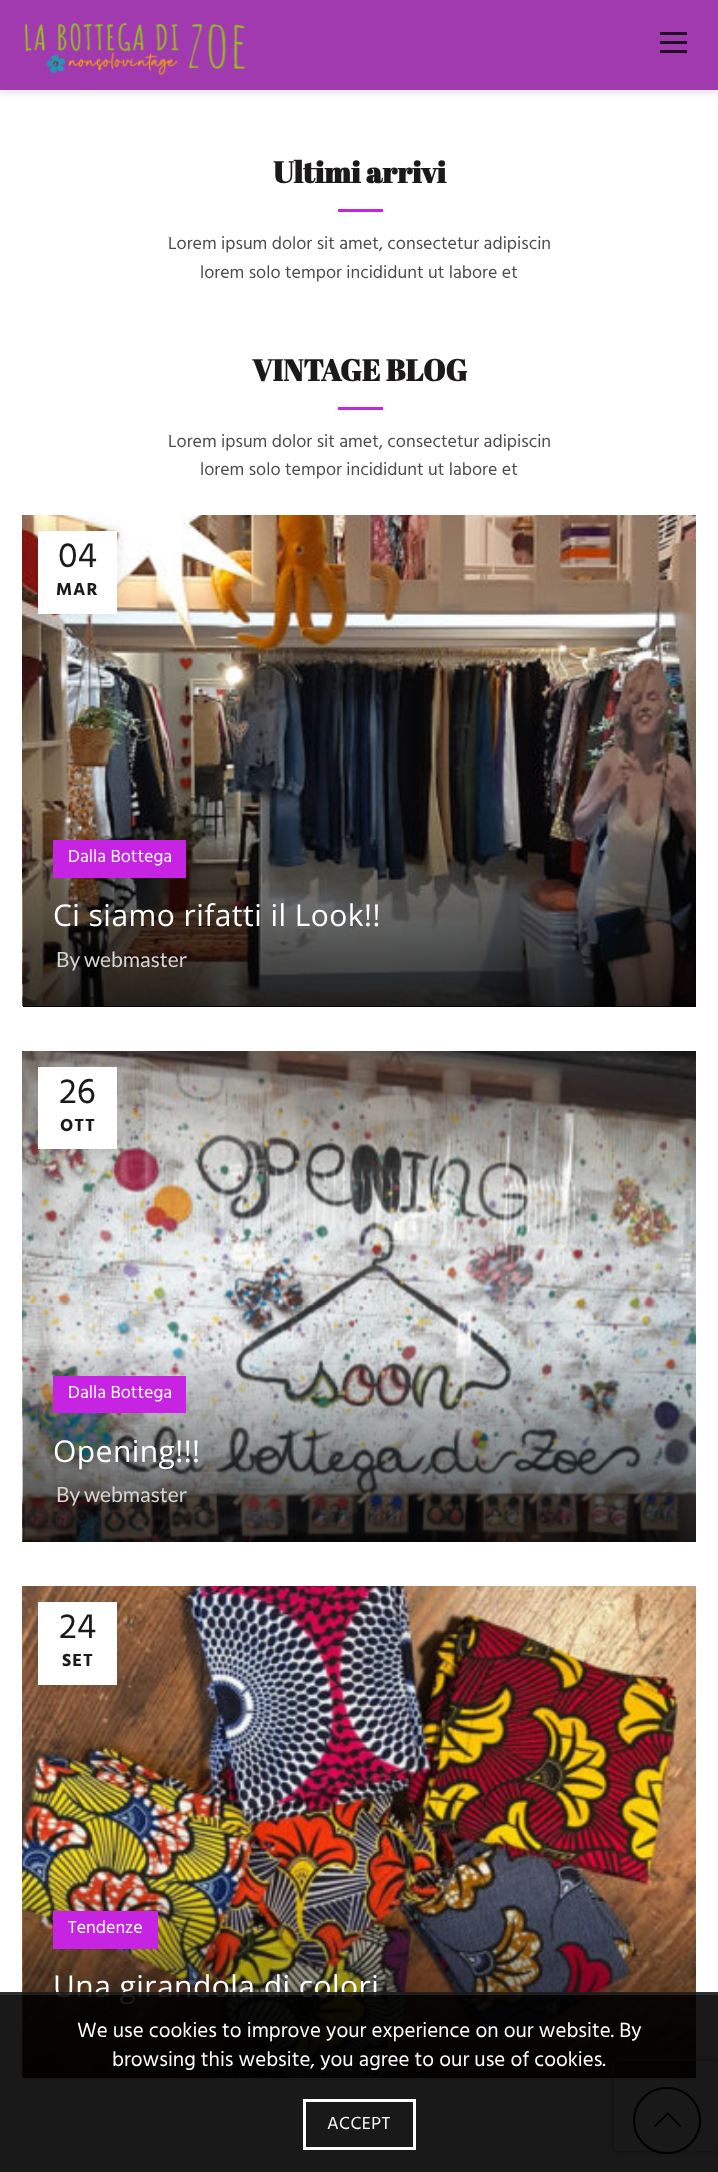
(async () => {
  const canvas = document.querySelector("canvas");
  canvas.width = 718;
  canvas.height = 2172;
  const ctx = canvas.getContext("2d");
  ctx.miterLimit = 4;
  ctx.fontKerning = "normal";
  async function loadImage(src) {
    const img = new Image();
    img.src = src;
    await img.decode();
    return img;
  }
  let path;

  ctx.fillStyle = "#ffffff";
  ctx.fillRect(0, 0, 718, 2172);
  ctx.fillStyle = "rgba(190, 190, 190, 0.5)";
  ctx.filter = "blur(4px)";
  ctx.beginPath();
  ctx.rect(0, 2, 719, 90);
  ctx.fill();
  ctx.filter = "none";
  ctx.fillStyle = "#a23aaf";
  ctx.fillRect(0, 0, 718, 90);
  ctx.drawImage(await loadImage("img/1.png"), 24, 23, 222, 53);
  for (const [x, y, w, h, color] of [
    [660, 41, 27, 3, "#200c23"],
    [660, 32, 27, 3, "#200c23"],
    [660, 50, 27, 3, "#200c23"],
    [338, 209, 45, 3, "#c624e2"],
    [338, 407, 45, 3, "#c624e2"],
    [23, 1006, 673, 1, "#000000"],
  ]) {
    ctx.fillStyle = color;
    ctx.fillRect(x, y, w, h);
  }
  ctx.drawImage(await loadImage("img/2.png"), 22, 515, 674, 491);
  ctx.fillStyle = "rgba(0, 0, 0, 0.1)";
  ctx.filter = "blur(7px)";
  ctx.beginPath();
  ctx.rect(38, 531, 79, 83);
  ctx.fill();
  ctx.filter = "none";
  ctx.fillStyle = "#ffffff";
  ctx.fillRect(38, 531, 79, 83);
  ctx.fillStyle = "#c624e2";
  ctx.fillRect(53, 840, 133, 38);
  ctx.drawImage(await loadImage("img/3.png"), 22, 1051, 674, 491);
  ctx.fillStyle = "rgba(0, 0, 0, 0.1)";
  ctx.filter = "blur(7px)";
  ctx.beginPath();
  ctx.rect(38, 1067, 79, 82);
  ctx.fill();
  ctx.filter = "none";
  for (const [x, y, w, h, color] of [
    [38, 1067, 79, 82, "#ffffff"],
    [53, 1376, 133, 37, "#c624e2"],
    [23, 2077, 673, 1, "#000000"],
  ]) {
    ctx.fillStyle = color;
    ctx.fillRect(x, y, w, h);
  }
  ctx.drawImage(await loadImage("img/4.png"), 22, 1586, 674, 491);
  ctx.fillStyle = "rgba(0, 0, 0, 0.1)";
  ctx.filter = "blur(7px)";
  ctx.beginPath();
  ctx.rect(38, 1602, 79, 83);
  ctx.fill();
  ctx.filter = "none";
  ctx.fillStyle = "#ffffff";
  ctx.fillRect(38, 1602, 79, 83);
  ctx.fillStyle = "#c624e2";
  ctx.fillRect(53, 1911, 105, 38);
  ctx.save();
  path = new Path2D("M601 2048H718V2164H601ZM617 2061H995C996.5 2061 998 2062.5 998 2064V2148C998 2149.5 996.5 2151 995 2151H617C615.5 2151 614 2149.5 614 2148V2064C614 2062.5 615.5 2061 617 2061Z");
  ctx.clip(path, "evenodd");
  ctx.fillStyle = "#808080";
  ctx.filter = "blur(4px)";
  ctx.beginPath();
  ctx.roundRect(614, 2061, 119, 90, 3);
  ctx.fill();
  ctx.filter = "none";
  ctx.restore();
  ctx.fillStyle = "#ffffff";
  ctx.beginPath();
  ctx.roundRect(634, 2088, 66, 65, 32.5);
  ctx.fill();
  ctx.strokeStyle = "#000000";
  ctx.lineWidth = 2;
  ctx.stroke();
  ctx.drawImage(await loadImage("img/5.png"), 654, 2112, 27, 15);
  ctx.font = "bold 30px Abril Fatface";
  ctx.fillStyle = "#1b1919";
  ctx.fillText("Ultimi arrivi", 273, 183);
  ctx.font = "18px Hind";
  ctx.fillStyle = "#4c4c4c";
  ctx.fillText("Lorem ipsum dolor sit amet, consectetur adipiscin", 168, 249);
  ctx.fillText("lorem solo tempor incididunt ut labore et", 200, 278);
  ctx.font = "bold 30px Abril Fatface";
  ctx.fillStyle = "#1b1919";
  ctx.fillText("VINTAGE BLOG", 252, 381);
  ctx.font = "18px Hind";
  ctx.fillStyle = "#4c4c4c";
  ctx.fillText("Lorem ipsum dolor sit amet, consectetur adipiscin", 168, 447);
  ctx.fillText("lorem solo tempor incididunt ut labore et", 200, 475);
  ctx.font = "36px Hind";
  ctx.fillStyle = "#1b1919";
  ctx.fillText("04", 58, 567);
  ctx.letterSpacing = "1px";
  ctx.font = "bold 18px Hind";
  ctx.fillText("MAR", 56, 595);
  ctx.letterSpacing = "0px";
  ctx.font = "18px Hind";
  ctx.fillStyle = "#ffffff";
  ctx.fillText("Dalla Bottega", 68, 862);
  ctx.letterSpacing = "0.45px";
  ctx.font = "30px Open Sans";
  ctx.fillText("Ci siamo rifatti il Look!!", 53, 926);
  ctx.letterSpacing = "0px";
  ctx.font = "21px Lato";
  ctx.fillStyle = "#d5d5d4";
  ctx.fillText("By", 56, 967);
  ctx.fillText("webmaster", 84, 967);
  ctx.font = "36px Hind";
  ctx.fillStyle = "#1b1919";
  ctx.fillText("26", 59, 1103);
  ctx.letterSpacing = "1px";
  ctx.font = "bold 18px Hind";
  ctx.fillText("OTT", 60, 1131);
  ctx.letterSpacing = "0px";
  ctx.font = "18px Hind";
  ctx.fillStyle = "#ffffff";
  ctx.fillText("Dalla Bottega", 68, 1398);
  ctx.letterSpacing = "0.45px";
  ctx.font = "30px Open Sans";
  ctx.fillText("Opening!!!", 53, 1462);
  ctx.letterSpacing = "0px";
  ctx.font = "21px Lato";
  ctx.fillStyle = "#d5d5d4";
  ctx.fillText("By", 56, 1502);
  ctx.fillText("webmaster", 84, 1502);
  ctx.font = "36px Hind";
  ctx.fillStyle = "#1b1919";
  ctx.fillText("24", 59, 1638);
  ctx.letterSpacing = "1px";
  ctx.font = "bold 18px Hind";
  ctx.fillText("SET", 62, 1666);
  ctx.letterSpacing = "0px";
  ctx.font = "18px Hind";
  ctx.fillStyle = "#ffffff";
  ctx.fillText("Tendenze", 68, 1933);
  ctx.letterSpacing = "0.45px";
  ctx.font = "30px Open Sans";
  ctx.fillText("Una girandola di colori", 53, 1997);
  ctx.fillStyle = "rgba(0, 0, 0, 0.9)";
  ctx.fillRect(0, 1992, 718, 180);
  ctx.fillStyle = "rgba(255, 255, 255, 0.1)";
  ctx.fillRect(0, 1992, 718, 3);
  ctx.letterSpacing = "0px";
  ctx.font = "21px Hind";
  ctx.fillStyle = "#ffffff";
  ctx.fillText("We use cookies to improve your experience on our website. By", 77, 2037);
  ctx.fillText("browsing this website, you agree to our use of cookies.", 112, 2066);
  ctx.strokeStyle = "#ffffff";
  ctx.lineWidth = 3;
  ctx.strokeRect(304.5, 2100.5, 110, 48);
  ctx.letterSpacing = "0.45px";
  ctx.font = "18px Hind";
  ctx.fillText("ACCEPT", 327, 2129);
})();
